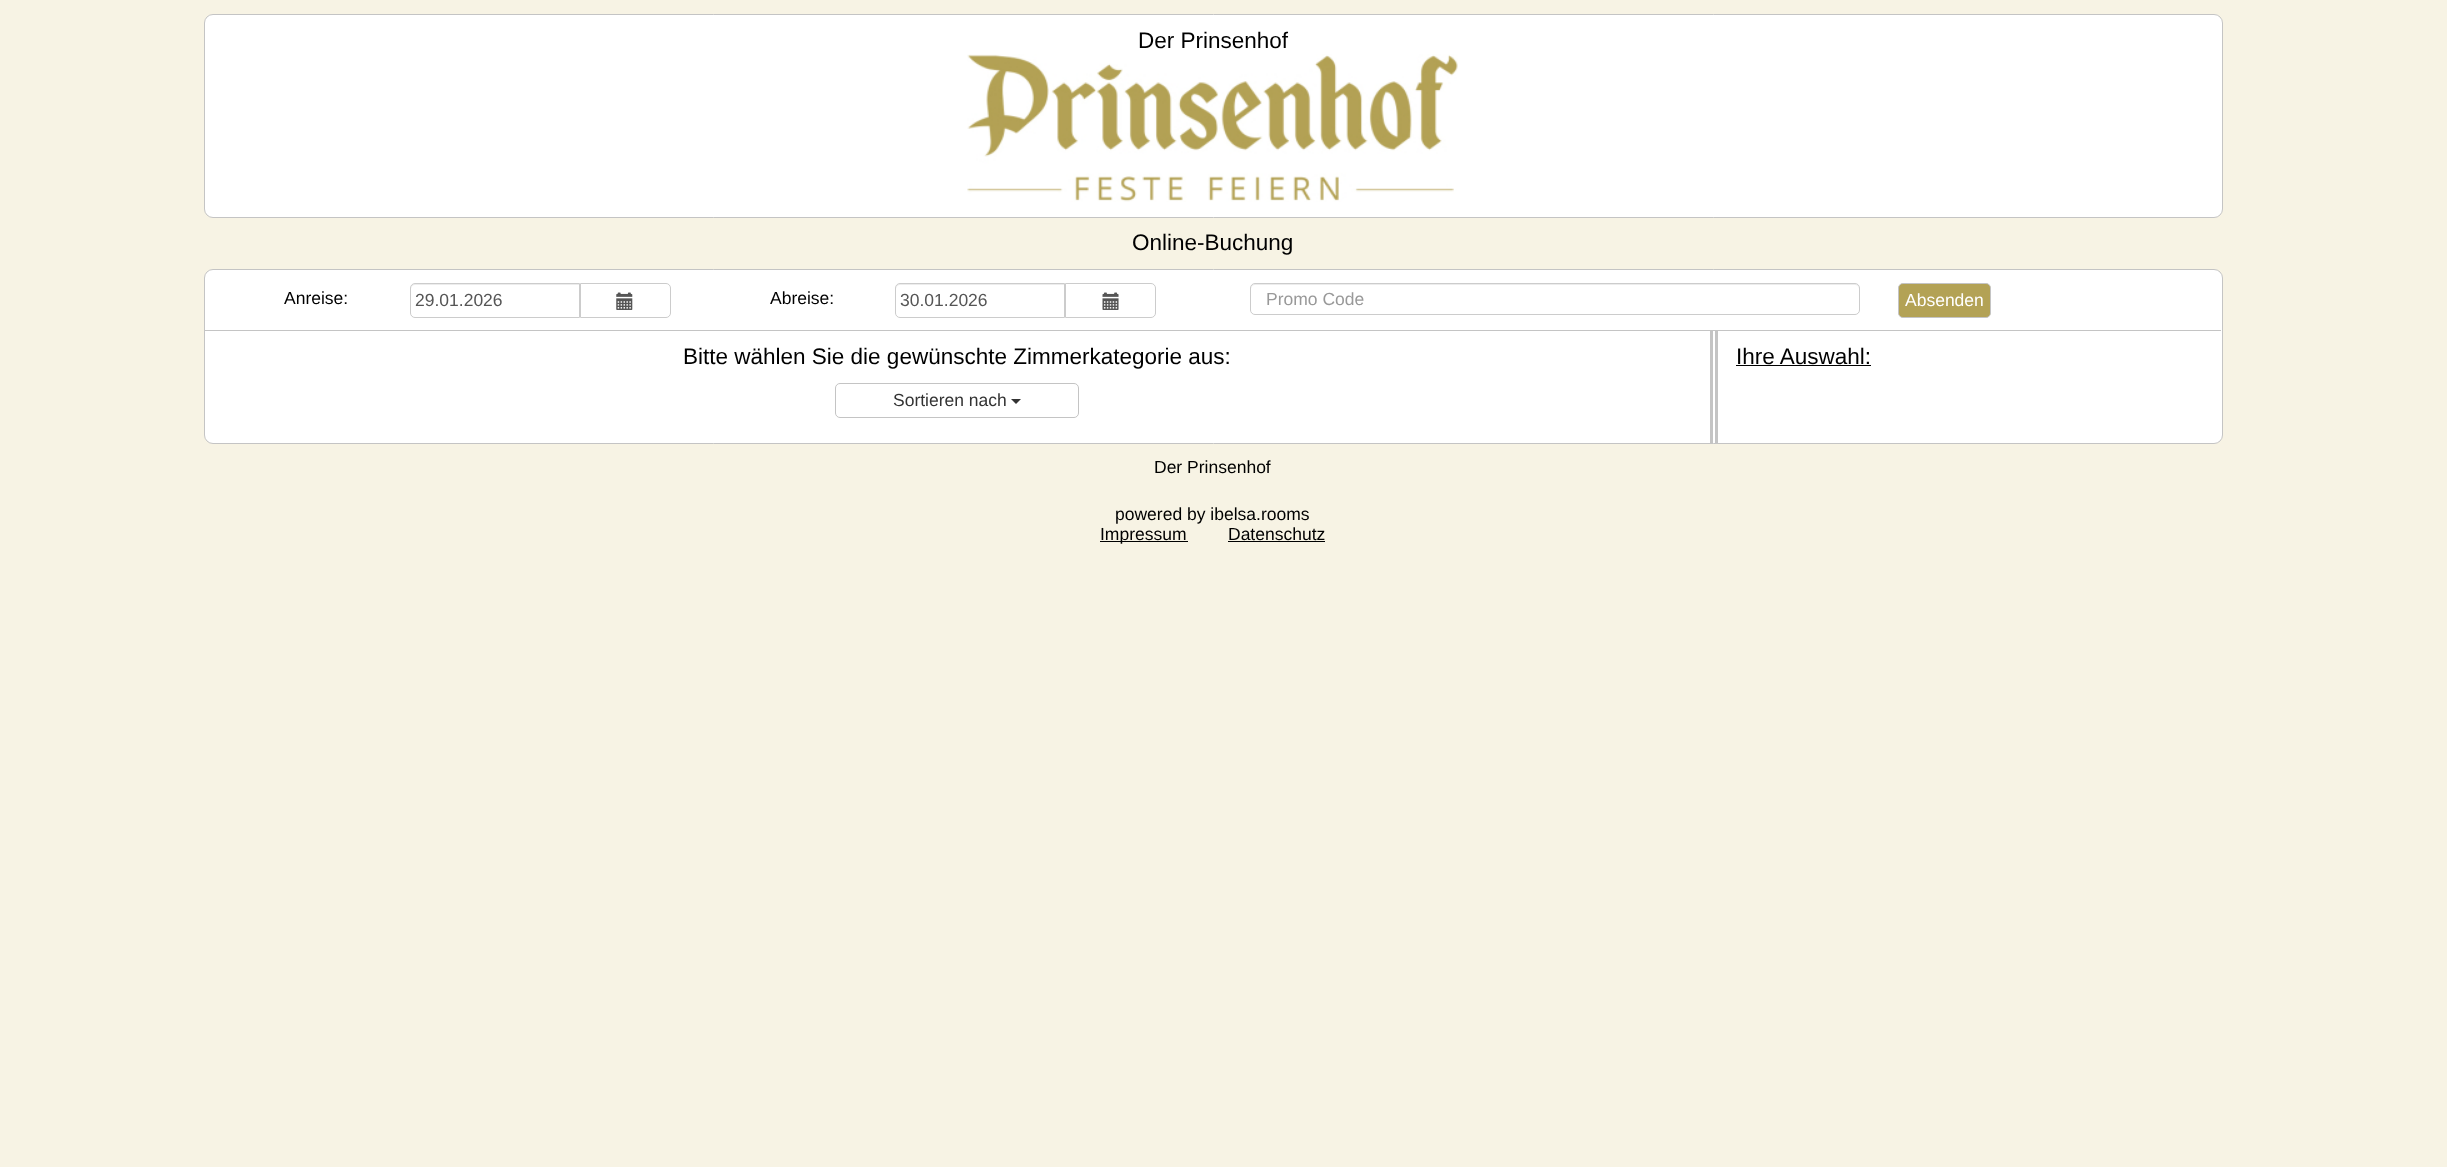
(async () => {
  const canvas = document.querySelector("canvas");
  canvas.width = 2447;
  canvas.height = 1167;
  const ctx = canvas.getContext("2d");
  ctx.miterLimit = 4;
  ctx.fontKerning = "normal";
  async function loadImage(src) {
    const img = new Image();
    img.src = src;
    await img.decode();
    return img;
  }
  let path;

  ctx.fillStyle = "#f7f3e4";
  ctx.fillRect(0, 0, 2447, 1167);
  ctx.fillStyle = "#ffffff";
  ctx.beginPath();
  ctx.roundRect(204.5, 14.5, 2018, 203, 8.5);
  ctx.fill();
  ctx.strokeStyle = "#c4c4c4";
  ctx.stroke();
  ctx.drawImage(await loadImage("img/1.png"), 967, 54, 491, 148);
  ctx.beginPath();
  ctx.roundRect(204.5, 269.5, 2018, 174, 8.5);
  ctx.fill();
  ctx.stroke();
  ctx.fillStyle = "#c4c4c4";
  ctx.fillRect(205, 330, 2016, 1);
  ctx.fillStyle = "#ececec";
  path = new Path2D("M415 285H579V284H415C412 284 411 286 411 289C411 287 413 285 415 285Z");
  ctx.fill(path);
  ctx.beginPath();
  ctx.roundRect(410.5, 283.5, 169, 34, [4.5, 0, 0, 4.5]);
  ctx.strokeStyle = "#cccccc";
  ctx.stroke();
  ctx.beginPath();
  ctx.roundRect(580.5, 283.5, 90, 34, [0, 4.5, 4.5, 0]);
  ctx.stroke();
  ctx.drawImage(await loadImage("img/2.png"), 616, 292, 17, 18);
  path = new Path2D("M900 285H1064V284H900C897 284 896 286 896 289C896 287 898 285 900 285Z");
  ctx.fill(path);
  ctx.beginPath();
  ctx.roundRect(895.5, 283.5, 169, 34, [4.5, 0, 0, 4.5]);
  ctx.stroke();
  ctx.beginPath();
  ctx.roundRect(1065.5, 283.5, 90, 34, [0, 4.5, 4.5, 0]);
  ctx.stroke();
  ctx.drawImage(await loadImage("img/3.png"), 1102, 292, 17, 18);
  path = new Path2D("M1255 285H1855C1857 285 1859 287 1859 289V288C1859 286 1857 284 1855 284H1255C1253 284 1251 286 1251 288V289C1251 287 1253 285 1255 285Z");
  ctx.fill(path);
  ctx.beginPath();
  ctx.roundRect(1250.5, 283.5, 609, 31, 4.5);
  ctx.stroke();
  ctx.fillStyle = "#b3a255";
  ctx.beginPath();
  ctx.roundRect(1898.5, 283.5, 92, 34, 4.5);
  ctx.fill();
  ctx.strokeStyle = "#c4c4c4";
  ctx.stroke();
  ctx.fillStyle = "#c4c4c4";
  ctx.fillRect(1710, 331, 3, 112);
  ctx.fillRect(1715, 331, 3, 112);
  ctx.beginPath();
  ctx.roundRect(835.5, 383.5, 243, 34, 4.5);
  ctx.stroke();
  ctx.fillStyle = "#333333";
  path = new Path2D("M1011 399H1021L1016 404Z");
  ctx.fill(path);
  for (const [x, y, w, h, color] of [
    [1736, 365, 135, 1, "#000000"],
    [1100, 541, 88, 1, "#000000"],
    [1228, 541, 97, 1, "#000000"],
  ]) {
    ctx.fillStyle = color;
    ctx.fillRect(x, y, w, h);
  }
  ctx.font = "22.5px Liberation Sans";
  ctx.fillText("Der Prinsenhof", 1138, 48);
  ctx.fillText("Online-Buchung", 1132, 250);
  ctx.font = "17.5px Liberation Sans";
  ctx.fillText("Anreise:", 284, 304);
  ctx.fillStyle = "#555555";
  ctx.fillText("29.01.2026", 415, 306);
  ctx.fillStyle = "#000000";
  ctx.fillText("Abreise:", 770, 304);
  ctx.fillStyle = "#555555";
  ctx.fillText("30.01.2026", 900, 306);
  ctx.fillStyle = "#999999";
  ctx.fillText("Promo Code", 1266, 305);
  ctx.fillStyle = "#ffffff";
  ctx.fillText("Absenden", 1905, 306);
  ctx.font = "22.5px Liberation Sans";
  ctx.fillStyle = "#000000";
  ctx.fillText("Bitte wählen Sie die gewünschte Zimmerkategorie aus:", 683, 364);
  ctx.font = "17.5px Liberation Sans";
  ctx.fillStyle = "#333333";
  ctx.fillText("Sortieren nach", 893, 406);
  ctx.font = "22.5px Liberation Sans";
  ctx.fillStyle = "#000000";
  ctx.fillText("Ihre Auswahl:", 1736, 364);
  ctx.font = "17.5px Liberation Sans";
  for (const [text, x, y] of [
    ["Der Prinsenhof", 1154, 473],
    ["powered by ibelsa.rooms", 1115, 520],
    ["Impressum", 1100, 540],
    ["Datenschutz", 1228, 540],
  ]) {
    ctx.fillText(text, x, y);
  }
})();
